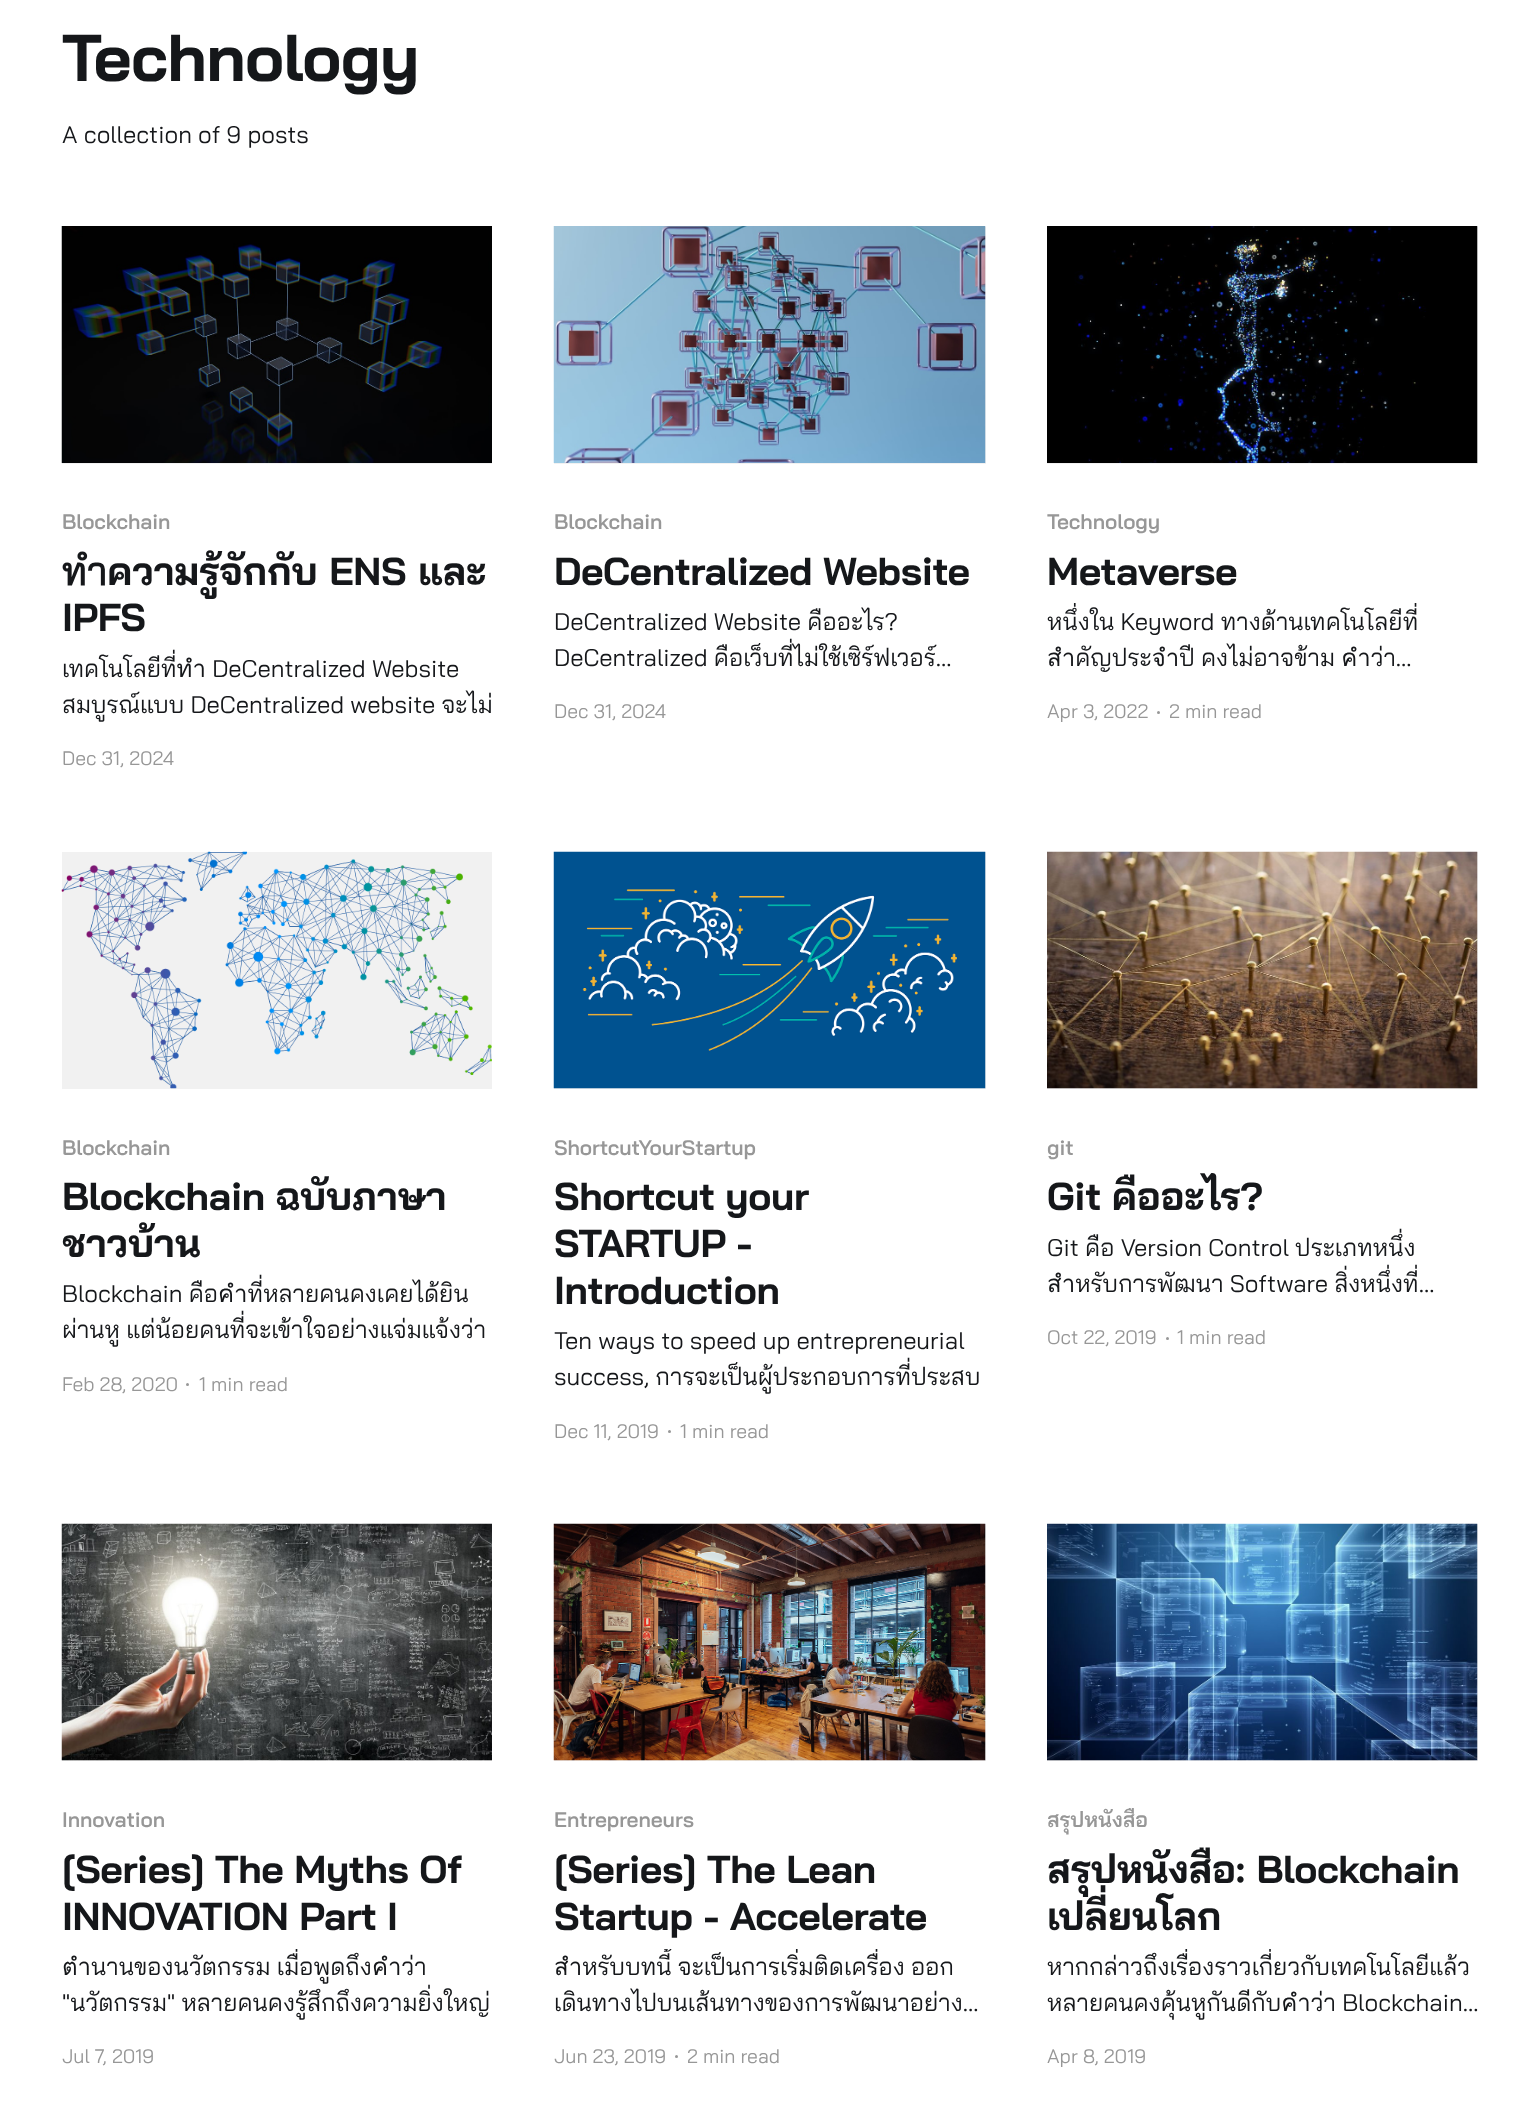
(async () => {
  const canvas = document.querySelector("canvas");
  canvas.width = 1539;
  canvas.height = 2127;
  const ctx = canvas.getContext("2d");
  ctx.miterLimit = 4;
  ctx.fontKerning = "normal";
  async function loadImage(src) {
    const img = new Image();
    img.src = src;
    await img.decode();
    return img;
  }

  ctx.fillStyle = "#ffffff";
  ctx.fillRect(0, 0, 1539, 2127);
  ctx.fillStyle = "#f1f1f1";
  ctx.fillRect(62, 463, 430, 1);
  ctx.drawImage(await loadImage("img/1.png"), 61, 226, 431, 237);
  ctx.fillRect(554, 227, 432, 237);
  ctx.drawImage(await loadImage("img/2.png"), 553, 226, 433, 237);
  ctx.fillRect(1047, 227, 431, 237);
  ctx.drawImage(await loadImage("img/3.png"), 1047, 226, 431, 237);
  ctx.fillStyle = "#979797";
  ctx.beginPath();
  ctx.arc(1158.5, 712.5, 1.5, 0, Math.PI * 2);
  ctx.fill();
  ctx.fillStyle = "#f1f1f1";
  ctx.fillRect(62, 852, 430, 237);
  ctx.drawImage(await loadImage("img/4.png"), 61, 851, 431, 238);
  ctx.fillStyle = "#979797";
  ctx.beginPath();
  ctx.arc(187.5, 1384.5, 1.5, 0, Math.PI * 2);
  ctx.fill();
  ctx.fillStyle = "#f1f1f1";
  ctx.fillRect(554, 852, 432, 237);
  ctx.drawImage(await loadImage("img/5.png"), 553, 851, 433, 238);
  ctx.fillStyle = "#979797";
  ctx.beginPath();
  ctx.arc(669.5, 1431.5, 1.5, 0, Math.PI * 2);
  ctx.fill();
  ctx.fillStyle = "#f1f1f1";
  ctx.fillRect(1047, 852, 431, 237);
  ctx.drawImage(await loadImage("img/6.png"), 1047, 851, 431, 238);
  ctx.fillStyle = "#979797";
  ctx.beginPath();
  ctx.arc(1167.5, 1338.5, 1.5, 0, Math.PI * 2);
  ctx.fill();
  ctx.fillStyle = "#f1f1f1";
  ctx.fillRect(62, 1760, 430, 1);
  ctx.drawImage(await loadImage("img/7.png"), 61, 1523, 431, 238);
  ctx.fillRect(554, 1524, 432, 237);
  ctx.drawImage(await loadImage("img/8.png"), 553, 1523, 433, 238);
  ctx.fillStyle = "#979797";
  ctx.beginPath();
  ctx.arc(676.5, 2056.5, 1.5, 0, Math.PI * 2);
  ctx.fill();
  ctx.fillStyle = "#f1f1f1";
  ctx.fillRect(1047, 1524, 431, 237);
  ctx.drawImage(await loadImage("img/9.png"), 1047, 1523, 431, 238);
  ctx.letterSpacing = "-0.75px";
  ctx.font = "bold 66px Bai Jamjuree";
  ctx.fillStyle = "#15171a";
  ctx.fillText("Technology", 62, 81);
  ctx.letterSpacing = "0px";
  ctx.font = "24px Bai Jamjuree";
  ctx.fillText("A collection of 9 posts", 62, 143);
  ctx.letterSpacing = "-0.1px";
  ctx.font = "600 21px Bai Jamjuree";
  ctx.fillStyle = "#979797";
  ctx.fillText("Blockchain", 62, 529);
  ctx.letterSpacing = "-0.4px";
  ctx.wordSpacing = "1px";
  ctx.font = "bold 39px Bai Jamjuree";
  ctx.fillStyle = "#15171a";
  ctx.fillText("ทำความรู้จักกับ ENS และ", 62, 585);
  ctx.wordSpacing = "0px";
  ctx.fillText("IPFS", 62, 631);
  ctx.letterSpacing = "0px";
  ctx.font = "24px Bai Jamjuree";
  ctx.fillText("เทคโนโลยีที่ทำ DeCentralized Website", 62, 677);
  ctx.fillText("สมบูรณ์แบบ DeCentralized website จะไม่", 62, 713);
  ctx.font = "19.5px Bai Jamjuree";
  ctx.fillStyle = "#979797";
  ctx.fillText("Dec 31, 2024", 62, 765);
  ctx.letterSpacing = "-0.1px";
  ctx.font = "600 21px Bai Jamjuree";
  ctx.fillText("Blockchain", 554, 529);
  ctx.letterSpacing = "-0.4px";
  ctx.font = "bold 39px Bai Jamjuree";
  ctx.fillStyle = "#15171a";
  ctx.fillText("DeCentralized Website", 554, 585);
  ctx.letterSpacing = "0px";
  ctx.font = "24px Bai Jamjuree";
  ctx.fillText("DeCentralized Website คืออะไร?", 554, 630);
  ctx.fillText("DeCentralized คือเว็บที่ไม่ใช้เซิร์ฟเวอร์…", 554, 666);
  ctx.font = "19.5px Bai Jamjuree";
  ctx.fillStyle = "#979797";
  ctx.fillText("Dec 31, 2024", 554, 718);
  ctx.letterSpacing = "-0.1px";
  ctx.font = "600 21px Bai Jamjuree";
  ctx.fillText("Technology", 1047, 529);
  ctx.letterSpacing = "-0.4px";
  ctx.font = "bold 39px Bai Jamjuree";
  ctx.fillStyle = "#15171a";
  ctx.fillText("Metaverse", 1047, 585);
  ctx.save();
  ctx.beginPath();
  ctx.rect(1047, 603, 431, 72);
  ctx.clip();
  ctx.letterSpacing = "0px";
  ctx.font = "24px Bai Jamjuree";
  ctx.fillText("หนึ่งใน Keyword ทางด้านเทคโนโลยีที่", 1047, 630);
  ctx.fillText("สำคัญประจำปี คงไม่อาจข้าม คำว่า…", 1047, 666);
  ctx.restore();
  ctx.letterSpacing = "0px";
  ctx.font = "19.5px Bai Jamjuree";
  ctx.fillStyle = "#979797";
  ctx.fillText("Apr 3, 2022", 1047, 718);
  ctx.fillText("2 min read", 1169, 718);
  ctx.letterSpacing = "-0.1px";
  ctx.font = "600 21px Bai Jamjuree";
  ctx.fillText("Blockchain", 62, 1155);
  ctx.letterSpacing = "-0.4px";
  ctx.font = "bold 39px Bai Jamjuree";
  ctx.fillStyle = "#15171a";
  ctx.fillText("Blockchain ฉบับภาษา", 62, 1210);
  ctx.fillText("ชาวบ้าน", 62, 1257);
  ctx.letterSpacing = "0px";
  ctx.font = "24px Bai Jamjuree";
  ctx.fillText("Blockchain คือคำที่หลายคนคงเคยได้ยิน", 62, 1302);
  ctx.save();
  ctx.beginPath();
  ctx.rect(62, 1275, 430, 72);
  ctx.clip();
  ctx.fillText("ผ่านหู แต่น้อยคนที่จะเข้าใจอย่างแจ่มแจ้งว่า", 62, 1338);
  ctx.restore();
  ctx.font = "19.5px Bai Jamjuree";
  ctx.fillStyle = "#979797";
  ctx.fillText("Feb 28, 2020", 62, 1391);
  ctx.fillText("1 min read", 199, 1391);
  ctx.letterSpacing = "-0.1px";
  ctx.font = "600 21px Bai Jamjuree";
  ctx.fillText("ShortcutYourStartup", 554, 1155);
  ctx.letterSpacing = "-0.4px";
  ctx.font = "bold 39px Bai Jamjuree";
  ctx.fillStyle = "#15171a";
  for (const [text, x, y] of [
    ["Shortcut your", 554, 1210],
    ["STARTUP -", 554, 1257],
    ["Introduction", 554, 1304],
  ]) {
    ctx.fillText(text, x, y);
  }
  ctx.letterSpacing = "0px";
  ctx.font = "24px Bai Jamjuree";
  ctx.fillText("Ten ways to speed up entrepreneurial", 554, 1349);
  ctx.fillText("success, การจะเป็นผู้ประกอบการที่ประสบ", 554, 1385);
  ctx.font = "19.5px Bai Jamjuree";
  ctx.fillStyle = "#979797";
  ctx.fillText("Dec 11, 2019", 554, 1438);
  ctx.fillText("1 min read", 680, 1438);
  ctx.letterSpacing = "-0.1px";
  ctx.font = "600 21px Bai Jamjuree";
  ctx.fillText("git", 1047, 1155);
  ctx.letterSpacing = "-0.4px";
  ctx.font = "bold 39px Bai Jamjuree";
  ctx.fillStyle = "#15171a";
  ctx.fillText("Git คืออะไร?", 1047, 1210);
  ctx.letterSpacing = "0px";
  ctx.font = "24px Bai Jamjuree";
  ctx.fillText("Git คือ Version Control ประเภทหนึ่ง", 1047, 1256);
  ctx.save();
  ctx.beginPath();
  ctx.rect(1047, 1229, 431, 72);
  ctx.clip();
  ctx.fillText("สำหรับการพัฒนา Software สิ่งหนึ่งที่…", 1047, 1292);
  ctx.restore();
  ctx.font = "19.5px Bai Jamjuree";
  ctx.fillStyle = "#979797";
  ctx.fillText("Oct 22, 2019", 1047, 1344);
  ctx.fillText("1 min read", 1177, 1344);
  ctx.letterSpacing = "-0.1px";
  ctx.font = "600 21px Bai Jamjuree";
  ctx.fillText("Innovation", 62, 1827);
  ctx.letterSpacing = "-0.4px";
  ctx.font = "bold 39px Bai Jamjuree";
  ctx.fillStyle = "#15171a";
  ctx.fillText("[Series] The Myths Of", 62, 1883);
  ctx.fillText("INNOVATION Part I", 62, 1930);
  ctx.save();
  ctx.beginPath();
  ctx.rect(62, 1949, 430, 72);
  ctx.clip();
  ctx.letterSpacing = "0px";
  ctx.font = "24px Bai Jamjuree";
  ctx.fillText("ตำนานของนวัตกรรม เมื่อพูดถึงคำว่า", 62, 1975);
  ctx.restore();
  ctx.letterSpacing = "0px";
  ctx.font = "24px Bai Jamjuree";
  ctx.fillText("\"นวัตกรรม\" หลายคนคงรู้สึกถึงความยิ่งใหญ่", 62, 2011);
  ctx.font = "19.5px Bai Jamjuree";
  ctx.fillStyle = "#979797";
  ctx.fillText("Jul 7, 2019", 62, 2063);
  ctx.letterSpacing = "-0.1px";
  ctx.font = "600 21px Bai Jamjuree";
  ctx.fillText("Entrepreneurs", 554, 1827);
  ctx.letterSpacing = "-0.4px";
  ctx.font = "bold 39px Bai Jamjuree";
  ctx.fillStyle = "#15171a";
  ctx.fillText("[Series] The Lean", 554, 1883);
  ctx.fillText("Startup - Accelerate", 554, 1930);
  ctx.save();
  ctx.beginPath();
  ctx.rect(554, 1949, 432, 72);
  ctx.clip();
  ctx.letterSpacing = "0px";
  ctx.font = "24px Bai Jamjuree";
  ctx.fillText("สำหรับบทนี้ จะเป็นการเริ่มติดเครื่อง ออก", 554, 1975);
  ctx.fillText("เดินทางไปบนเส้นทางของการพัฒนาอย่าง…", 554, 2011);
  ctx.restore();
  ctx.letterSpacing = "0px";
  ctx.font = "19.5px Bai Jamjuree";
  ctx.fillStyle = "#979797";
  ctx.fillText("Jun 23, 2019", 554, 2063);
  ctx.fillText("2 min read", 687, 2063);
  ctx.letterSpacing = "-0.1px";
  ctx.font = "600 21px Bai Jamjuree";
  ctx.fillText("สรุปหนังสือ", 1047, 1827);
  ctx.letterSpacing = "-0.4px";
  ctx.wordSpacing = "1px";
  ctx.font = "bold 39px Bai Jamjuree";
  ctx.fillStyle = "#15171a";
  ctx.fillText("สรุปหนังสือ: Blockchain", 1047, 1883);
  ctx.wordSpacing = "0px";
  ctx.fillText("เปลี่ยนโลก", 1047, 1930);
  ctx.save();
  ctx.beginPath();
  ctx.rect(1047, 1949, 431, 72);
  ctx.clip();
  ctx.letterSpacing = "0px";
  ctx.font = "24px Bai Jamjuree";
  ctx.fillText("หากกล่าวถึงเรื่องราวเกี่ยวกับเทคโนโลยีแล้ว", 1047, 1975);
  ctx.restore();
  ctx.letterSpacing = "0px";
  ctx.font = "24px Bai Jamjuree";
  ctx.fillText("หลายคนคงคุ้นหูกันดีกับคำว่า Blockchain…", 1047, 2011);
  ctx.font = "19.5px Bai Jamjuree";
  ctx.fillStyle = "#979797";
  ctx.fillText("Apr 8, 2019", 1047, 2063);
})();
